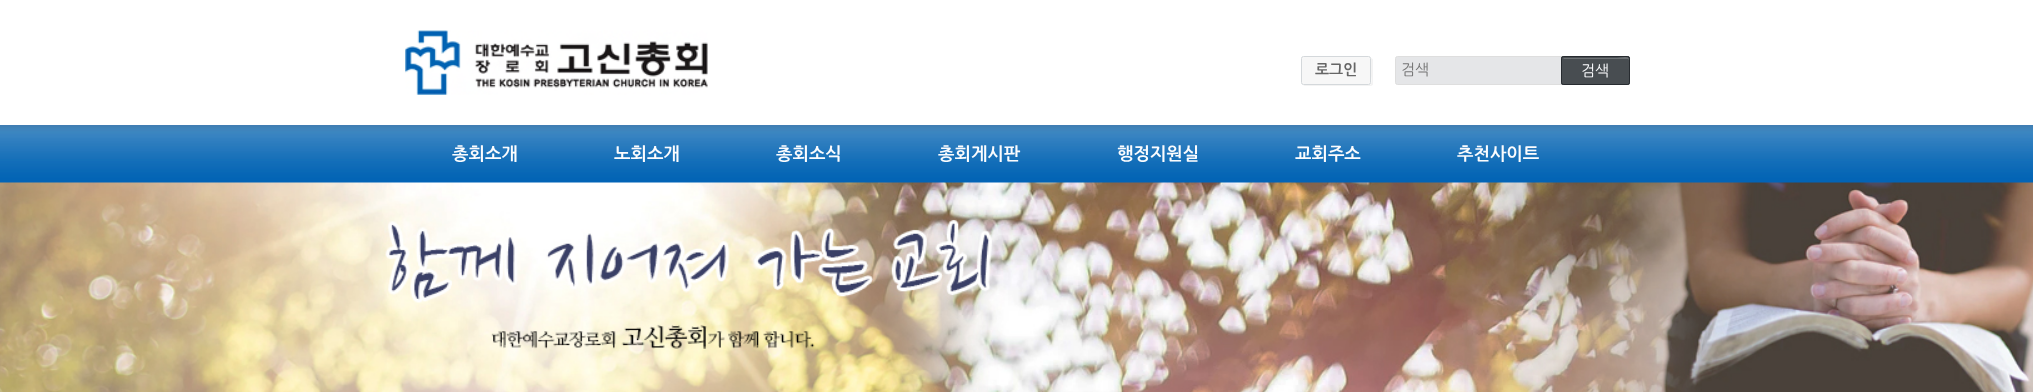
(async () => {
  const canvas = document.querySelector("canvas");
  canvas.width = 2033;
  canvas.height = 392;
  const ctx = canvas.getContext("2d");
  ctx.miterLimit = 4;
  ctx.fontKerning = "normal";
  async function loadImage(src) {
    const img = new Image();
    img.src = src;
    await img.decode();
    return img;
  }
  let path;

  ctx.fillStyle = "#ffffff";
  ctx.fillRect(0, 0, 2033, 392);
  ctx.drawImage(await loadImage("img/1.png"), 405, 30, 303, 65);
  ctx.fillStyle = "#f3f3f3";
  path = new Path2D("M1303 85C1304 86 1305 86 1306 86H1370C1372 86 1373 85 1373 84V60C1373 59 1372 58 1371 58V75C1371 77 1373 85 1369 85Z");
  ctx.fill(path);
  ctx.fillStyle = "#f7f7f7";
  ctx.beginPath();
  ctx.roundRect(1301.5, 56.5, 69, 28, 2);
  ctx.fill();
  ctx.strokeStyle = "#d4d8db";
  ctx.stroke();
  ctx.fillStyle = "#e5e6e8";
  ctx.beginPath();
  ctx.roundRect(1395.5, 56.5, 169, 28, 2);
  ctx.fill();
  ctx.strokeStyle = "#dedede";
  ctx.stroke();
  ctx.fillStyle = "#484d51";
  ctx.beginPath();
  ctx.roundRect(1561, 56, 69, 29, 2.5);
  ctx.fill();
  ctx.fillStyle = "#6d7174";
  path = new Path2D("M1564 59H1628L1629 60C1629 55 1621 58 1617 58H1564L1563 59Z");
  ctx.fill(path);
  ctx.beginPath();
  ctx.roundRect(1561.5, 56.5, 68, 28, 2);
  ctx.strokeStyle = "#272b30";
  ctx.stroke();
  ctx.drawImage(await loadImage("img/3.png"), 0, 182, 2033, 210);
  ctx.drawImage(await loadImage("img/2.png"), 0, 125, 2033, 58);
  ctx.font = "bold 15px NanumGothic";
  ctx.fillStyle = "#666666";
  ctx.fillText("로그인", 1315, 75);
  ctx.font = "15px NanumGothic";
  ctx.fillStyle = "#757575";
  ctx.fillText("검색", 1401, 75);
  ctx.fillStyle = "#fbfcfe";
  ctx.fillText("검색", 1581, 76);
  ctx.font = "bold 17.5px NanumGothic";
  for (const [text, x, y] of [
    ["총회소개", 452, 160],
    ["노회소개", 614, 160],
    ["총회소식", 776, 160],
    ["총회게시판", 938, 160],
    ["행정지원실", 1117, 160],
    ["교회주소", 1295, 160],
    ["추천사이트", 1457, 160],
  ]) {
    ctx.fillText(text, x, y);
  }
})();
